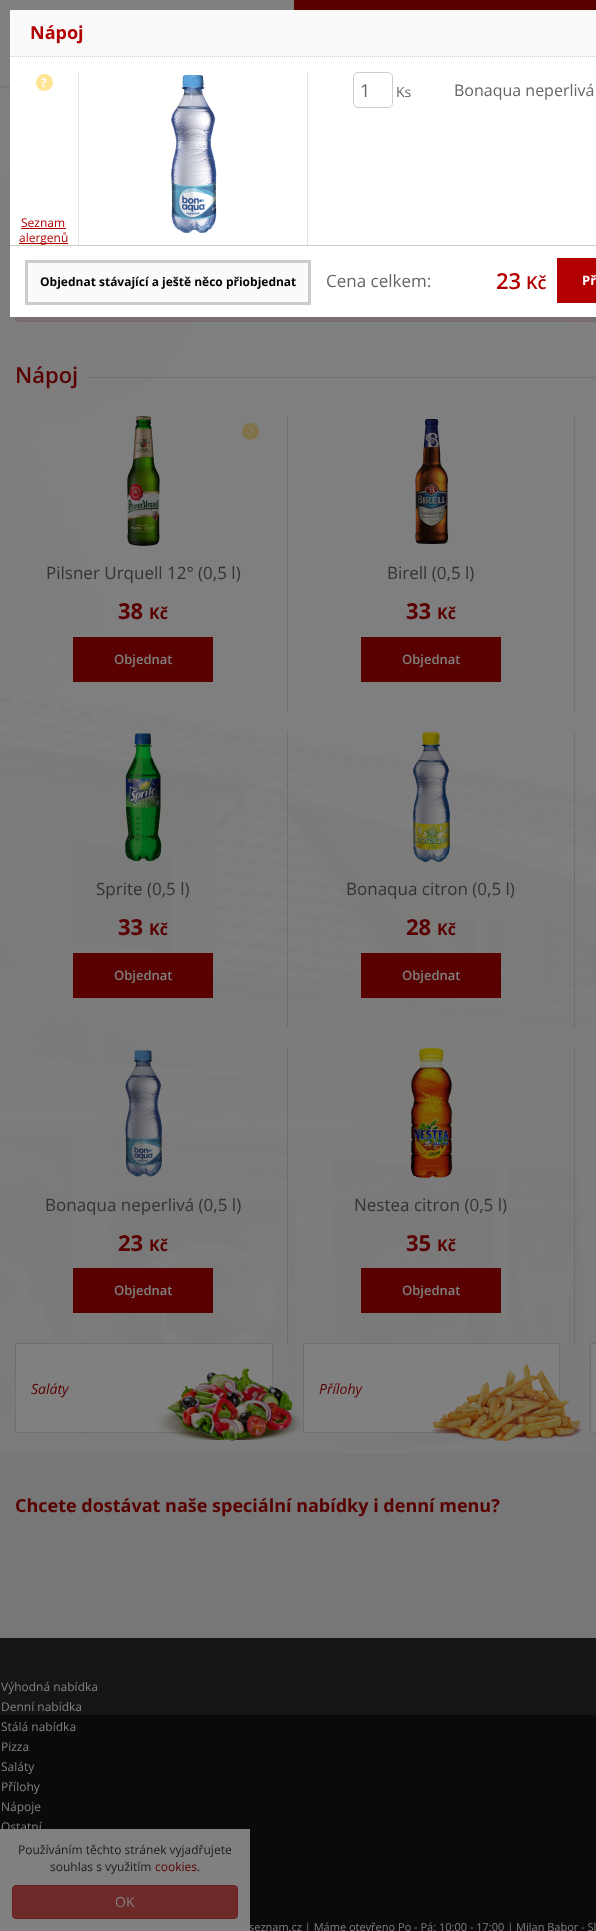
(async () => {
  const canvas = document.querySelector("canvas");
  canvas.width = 596;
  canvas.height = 1931;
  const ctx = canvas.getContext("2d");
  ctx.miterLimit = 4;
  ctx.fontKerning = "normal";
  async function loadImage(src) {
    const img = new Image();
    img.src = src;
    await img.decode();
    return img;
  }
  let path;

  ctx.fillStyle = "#808080";
  ctx.fillRect(0, 0, 596, 1931);
  ctx.fillStyle = "#590000";
  ctx.fillRect(294, 0, 302, 10);
  ctx.drawImage(await loadImage("img/1.png"), 0, 0, 294, 89);
  ctx.drawImage(await loadImage("img/3.png"), 0, 175, 596, 1278);
  ctx.fillStyle = "rgba(128, 128, 128, 0.95)";
  ctx.fillRect(0, 175, 10, 95);
  ctx.fillRect(0, 270, 596, 1073);
  ctx.fillStyle = "#796f6f";
  ctx.beginPath();
  ctx.roundRect(15.5, 270.5, 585, 51, 3.5);
  ctx.fill();
  ctx.strokeStyle = "#766669";
  ctx.stroke();
  ctx.fillStyle = "#ffffff";
  ctx.fillRect(10, 57, 586, 260);
  ctx.fillStyle = "#fafafa";
  ctx.fillRect(10, 10, 586, 47);
  path = new Path2D("M10 56.5H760");
  ctx.strokeStyle = "#cccccc";
  ctx.setLineDash([1, 1]);
  ctx.stroke(path);
  ctx.fillStyle = "#ffe493";
  ctx.beginPath();
  ctx.arc(44.5, 82.5, 8.5, 0, Math.PI * 2);
  ctx.fill();
  path = new Path2D("M307.5 72V245");
  ctx.stroke(path);
  path = new Path2D("M78.5 72V245");
  ctx.stroke(path);
  ctx.drawImage(await loadImage("img/2.png"), 171, 75, 46, 159);
  ctx.fillStyle = "#b20000";
  ctx.fillRect(21, 228, 45, 1);
  ctx.fillRect(19, 243, 49, 1);
  ctx.beginPath();
  ctx.roundRect(353.5, 72.5, 39, 35, 4.5);
  ctx.strokeStyle = "#cdcdcd";
  ctx.setLineDash([]);
  ctx.stroke();
  ctx.fillStyle = "#cecebf";
  ctx.fillRect(10, 245, 586, 1);
  ctx.fillStyle = "#fafafa";
  ctx.beginPath();
  ctx.rect(26.5, 261.5, 283, 42);
  ctx.fill();
  ctx.strokeStyle = "#cccccc";
  ctx.lineWidth = 3;
  ctx.stroke();
  ctx.fillStyle = "#b20000";
  ctx.fillRect(557, 258, 39, 45);
  path = new Path2D("M88 377.5H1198");
  ctx.strokeStyle = "#61615d";
  ctx.lineWidth = 1;
  ctx.setLineDash([1, 1]);
  ctx.stroke(path);
  path = new Path2D("M287.5 416V712");
  ctx.stroke(path);
  ctx.drawImage(await loadImage("img/4.png"), 127, 416, 33, 130);
  ctx.fillStyle = "#7f7249";
  ctx.beginPath();
  ctx.arc(250.5, 431.5, 8.5, 0, Math.PI * 2);
  ctx.fill();
  ctx.fillStyle = "#590000";
  ctx.fillRect(73, 637, 140, 45);
  path = new Path2D("M574.5 416V712");
  ctx.stroke(path);
  ctx.drawImage(await loadImage("img/5.png"), 415, 419, 34, 125);
  ctx.fillRect(361, 637, 140, 45);
  path = new Path2D("M287.5 732V1028");
  ctx.stroke(path);
  ctx.drawImage(await loadImage("img/6.png"), 125, 733, 37, 128);
  ctx.fillRect(73, 953, 140, 45);
  path = new Path2D("M574.5 732V1028");
  ctx.stroke(path);
  ctx.drawImage(await loadImage("img/7.png"), 413, 732, 37, 130);
  ctx.fillRect(361, 953, 140, 45);
  path = new Path2D("M287.5 1048V1343");
  ctx.stroke(path);
  ctx.drawImage(await loadImage("img/8.png"), 125, 1050, 37, 127);
  ctx.fillRect(73, 1268, 140, 45);
  path = new Path2D("M574.5 1048V1343");
  ctx.stroke(path);
  ctx.drawImage(await loadImage("img/9.png"), 410, 1048, 42, 130);
  ctx.fillRect(361, 1268, 140, 45);
  ctx.fillStyle = "rgba(128, 128, 128, 0.95)";
  ctx.fillRect(0, 1343, 596, 110);
  ctx.fillStyle = "#808080";
  ctx.beginPath();
  ctx.rect(15.5, 1343.5, 257, 89);
  ctx.fill();
  ctx.strokeStyle = "#6f6f6f";
  ctx.setLineDash([]);
  ctx.stroke();
  ctx.drawImage(await loadImage("img/10.png"), 156, 1368, 147, 73);
  ctx.beginPath();
  ctx.rect(303.5, 1343.5, 256, 89);
  ctx.fill();
  ctx.stroke();
  ctx.drawImage(await loadImage("img/11.png"), 431, 1364, 151, 77);
  ctx.beginPath();
  ctx.rect(590.5, 1343.5, 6, 89);
  ctx.fill();
  ctx.stroke();
  for (const [x, y, w, h, color] of [
    [0, 1453, 596, 185, "#777777"],
    [0, 1638, 596, 77, "#151515"],
    [0, 1715, 596, 216, "#0a0a0a"],
    [0, 1829, 250, 102, "#808080"],
  ]) {
    ctx.fillStyle = color;
    ctx.fillRect(x, y, w, h);
  }
  ctx.fillStyle = "#6d2a28";
  ctx.beginPath();
  ctx.roundRect(12.5, 1885.5, 225, 33, 3.5);
  ctx.fill();
  ctx.strokeStyle = "#6a201d";
  ctx.stroke();
  ctx.font = "bold 18px Open Sans";
  ctx.fillStyle = "#b20000";
  ctx.fillText("Nápoj", 30, 39);
  ctx.font = "bold 12px Open Sans";
  ctx.fillStyle = "#ffffff";
  ctx.fillText("?", 41, 87);
  ctx.font = "12px Open Sans";
  ctx.fillStyle = "#b20000";
  ctx.fillText("Seznam", 21, 227);
  ctx.fillText("alergenů", 19, 242);
  ctx.font = "18px Open Sans";
  ctx.fillStyle = "#666666";
  ctx.fillText("1", 360, 97);
  ctx.font = "14px Open Sans";
  ctx.fillText("Ks", 396, 97);
  ctx.font = "16px Open Sans";
  ctx.fillText("Bonaqua neperlivá", 454, 96);
  ctx.font = "bold 12px Open Sans";
  ctx.fillStyle = "#000000";
  ctx.fillText("Objednat stávající a ještě něco přiobjednat", 40, 286);
  ctx.font = "17px Open Sans";
  ctx.fillStyle = "#666666";
  ctx.fillText("Cena celkem:", 326, 287);
  ctx.font = "600 22px Open Sans";
  ctx.fillStyle = "#b20000";
  ctx.fillText("23", 496, 289);
  ctx.font = "600 18px Open Sans";
  ctx.fillText("Kč", 526, 289);
  ctx.font = "bold 13px Open Sans";
  ctx.fillStyle = "#ffffff";
  ctx.fillText("Př", 582, 285);
  ctx.font = "600 22px Open Sans";
  ctx.fillStyle = "#590000";
  ctx.fillText("Nápoj", 15, 383);
  ctx.font = "12px Open Sans";
  ctx.fillStyle = "#808080";
  ctx.fillText("?", 248, 436);
  ctx.font = "17px Open Sans";
  ctx.fillStyle = "#333333";
  ctx.fillText("Pilsner Urquell 12° (0,5 l)", 46, 579);
  ctx.font = "bold 22px Open Sans";
  ctx.fillStyle = "#590000";
  ctx.fillText("38", 118, 619);
  ctx.font = "bold 16px Open Sans";
  ctx.fillText("Kč", 149, 619);
  ctx.font = "600 13px Open Sans";
  ctx.fillStyle = "#808080";
  ctx.fillText("Objednat", 114, 664);
  ctx.font = "17px Open Sans";
  ctx.fillStyle = "#333333";
  ctx.fillText("Birell (0,5 l)", 387, 579);
  ctx.font = "bold 22px Open Sans";
  ctx.fillStyle = "#590000";
  ctx.fillText("33", 406, 619);
  ctx.font = "bold 16px Open Sans";
  ctx.fillText("Kč", 437, 619);
  ctx.font = "600 13px Open Sans";
  ctx.fillStyle = "#808080";
  ctx.fillText("Objednat", 402, 664);
  ctx.font = "17px Open Sans";
  ctx.fillStyle = "#333333";
  ctx.fillText("Sprite (0,5 l)", 96, 895);
  ctx.font = "bold 22px Open Sans";
  ctx.fillStyle = "#590000";
  ctx.fillText("33", 118, 935);
  ctx.font = "bold 16px Open Sans";
  ctx.fillText("Kč", 149, 935);
  ctx.font = "600 13px Open Sans";
  ctx.fillStyle = "#808080";
  ctx.fillText("Objednat", 114, 980);
  ctx.font = "17px Open Sans";
  ctx.fillStyle = "#333333";
  ctx.fillText("Bonaqua citron (0,5 l)", 346, 895);
  ctx.font = "bold 22px Open Sans";
  ctx.fillStyle = "#590000";
  ctx.fillText("28", 406, 935);
  ctx.font = "bold 16px Open Sans";
  ctx.fillText("Kč", 437, 935);
  ctx.font = "600 13px Open Sans";
  ctx.fillStyle = "#808080";
  ctx.fillText("Objednat", 402, 980);
  ctx.font = "17px Open Sans";
  ctx.fillStyle = "#333333";
  ctx.fillText("Bonaqua neperlivá (0,5 l)", 45, 1211);
  ctx.font = "bold 22px Open Sans";
  ctx.fillStyle = "#590000";
  ctx.fillText("23", 118, 1251);
  ctx.font = "bold 16px Open Sans";
  ctx.fillText("Kč", 149, 1251);
  ctx.font = "600 13px Open Sans";
  ctx.fillStyle = "#808080";
  ctx.fillText("Objednat", 114, 1295);
  ctx.font = "17px Open Sans";
  ctx.fillStyle = "#333333";
  ctx.fillText("Nestea citron (0,5 l)", 354, 1211);
  ctx.font = "bold 22px Open Sans";
  ctx.fillStyle = "#590000";
  ctx.fillText("35", 406, 1251);
  ctx.font = "bold 16px Open Sans";
  ctx.fillText("Kč", 437, 1251);
  ctx.font = "600 13px Open Sans";
  ctx.fillStyle = "#808080";
  ctx.fillText("Objednat", 402, 1295);
  ctx.font = "italic 14px Open Sans";
  ctx.fillStyle = "#590000";
  ctx.fillText("Saláty", 31, 1394);
  ctx.fillText("Přílohy", 319, 1394);
  ctx.font = "bold 18px Open Sans";
  ctx.fillText("Chcete dostávat naše speciální nabídky i denní menu?", 15, 1512);
  ctx.font = "12px Open Sans";
  ctx.fillStyle = "#808080";
  for (const [text, x, y] of [
    ["Výhodná nabídka", 1, 1691],
    ["Denní nabídka", 1, 1711],
    ["Stálá nabídka", 1, 1731],
    ["Pizza", 1, 1751],
    ["Saláty", 1, 1771],
    ["Přílohy", 1, 1791],
    ["Nápoje", 1, 1811],
    ["Ostatní", 1, 1831],
  ]) {
    ctx.fillText(text, x, y);
  }
  ctx.font = "11px Open Sans";
  ctx.fillText("seznam.cz | Máme otevřeno Po - Pá: 10:00 - 17:00 | Milan Babor - Sl", 249, 1931);
  ctx.font = "12px Open Sans";
  ctx.fillStyle = "#1a1a1a";
  ctx.fillText("Používáním těchto stránek vyjadřujete", 18, 1854);
  ctx.fillText("souhlas s využitím", 50, 1871);
  ctx.fillStyle = "#590000";
  ctx.fillText("cookies", 155, 1871);
  ctx.fillStyle = "#1a1a1a";
  ctx.fillText(".", 197, 1871);
  ctx.font = "14px Open Sans";
  ctx.fillStyle = "#808080";
  ctx.fillText("OK", 115, 1907);
})();
